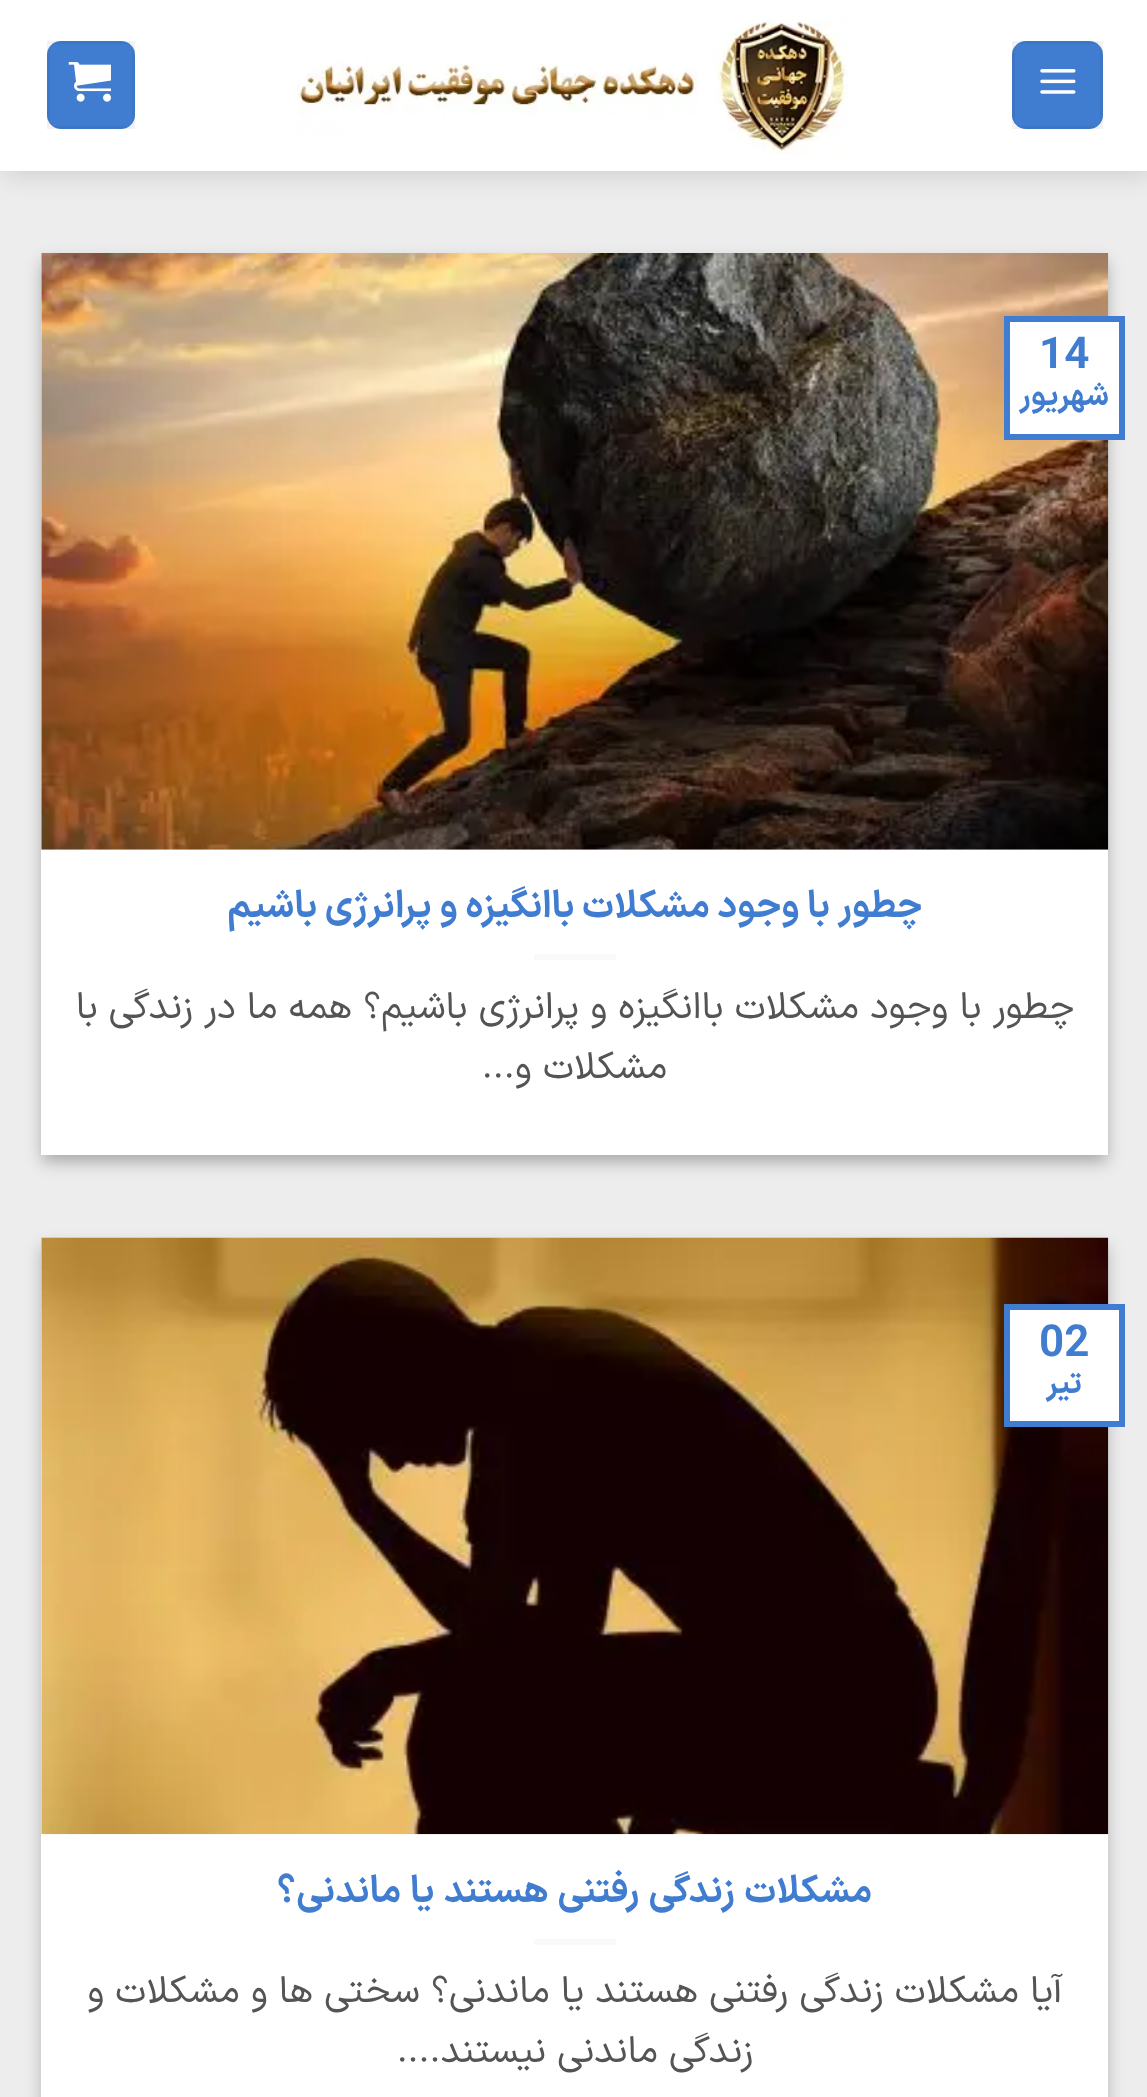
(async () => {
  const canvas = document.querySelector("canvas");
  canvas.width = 1147;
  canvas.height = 2097;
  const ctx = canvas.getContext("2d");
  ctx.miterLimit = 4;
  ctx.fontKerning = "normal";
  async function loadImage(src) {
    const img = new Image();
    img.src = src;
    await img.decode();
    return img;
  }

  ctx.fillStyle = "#ededed";
  ctx.fillRect(0, 0, 1147, 2097);
  ctx.fillStyle = "rgba(0, 0, 0, 0.15)";
  ctx.filter = "blur(14px)";
  ctx.beginPath();
  ctx.rect(3, 3, 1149, 170);
  ctx.fill();
  ctx.filter = "none";
  ctx.fillStyle = "#ffffff";
  ctx.fillRect(0, 0, 1147, 171);
  ctx.fillStyle = "#407dd0";
  ctx.beginPath();
  ctx.roundRect(1012, 41, 91, 88, 14);
  ctx.fill();
  ctx.strokeStyle = "rgba(0, 0, 0, 0.05)";
  ctx.lineWidth = 3;
  ctx.strokeRect(1013.5, 42.5, 88, 85);
  ctx.drawImage(await loadImage("img/1.png"), 1040, 69, 36, 25);
  ctx.drawImage(await loadImage("img/2.png"), 297, 19, 551, 136);
  ctx.beginPath();
  ctx.roundRect(47, 41, 88, 88, 14);
  ctx.fill();
  ctx.strokeRect(48.5, 42.5, 85, 85);
  ctx.drawImage(await loadImage("img/3.png"), 68, 62, 43, 40);
  ctx.fillStyle = "rgba(0, 0, 0, 0.23)";
  ctx.filter = "blur(8px)";
  ctx.beginPath();
  ctx.rect(41, 261, 1067, 902);
  ctx.fill();
  ctx.filter = "none";
  ctx.fillStyle = "rgba(0, 0, 0, 0.16)";
  ctx.filter = "blur(8px)";
  ctx.beginPath();
  ctx.rect(52, 272, 1045, 880);
  ctx.fill();
  ctx.filter = "none";
  ctx.fillStyle = "#ffffff";
  ctx.fillRect(41, 253, 1067, 902);
  ctx.drawImage(await loadImage("img/4.png"), 41, 253, 1068, 597);
  ctx.beginPath();
  ctx.rect(1007, 319, 115, 118);
  ctx.fill();
  ctx.strokeStyle = "#407dd0";
  ctx.lineWidth = 6;
  ctx.stroke();
  ctx.fillStyle = "#f9f9f9";
  ctx.fillRect(534, 954, 82, 6);
  ctx.fillStyle = "rgba(0, 0, 0, 0.23)";
  ctx.filter = "blur(8px)";
  ctx.beginPath();
  ctx.rect(41, 1246, 1067, 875);
  ctx.fill();
  ctx.filter = "none";
  ctx.fillStyle = "#ffffff";
  ctx.fillRect(41, 1238, 1067, 859);
  ctx.drawImage(await loadImage("img/5.png"), 41, 1237, 1068, 598);
  ctx.beginPath();
  ctx.rect(1007, 1307, 115, 117);
  ctx.fill();
  ctx.stroke();
  ctx.fillStyle = "#f9f9f9";
  ctx.fillRect(534, 1939, 82, 6);
  ctx.font = "bold 44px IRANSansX";
  ctx.fillStyle = "#407dd0";
  ctx.fillText("14", 1039, 368);
  ctx.direction = "rtl";
  ctx.font = "bold 31px IRANSansX";
  ctx.fillText("شهریور", 1109, 405);
  ctx.wordSpacing = "-0.25px";
  ctx.font = "bold 37.4px IRANSansX";
  ctx.fillText("چطور با وجود مشکلات باانگیزه و پرانرژی باشیم", 922, 917);
  ctx.wordSpacing = "0px";
  ctx.font = "37.4px IRANSansX";
  ctx.fillStyle = "#545454";
  ctx.fillText("چطور با وجود مشکلات باانگیزه و پرانرژی باشیم؟ همه ما در زندگی با", 1074, 1018);
  ctx.fillText("مشکلات و...", 667, 1078);
  ctx.direction = "ltr";
  ctx.font = "bold 44px IRANSansX";
  ctx.fillStyle = "#407dd0";
  ctx.fillText("02", 1039, 1356);
  ctx.direction = "rtl";
  ctx.font = "bold 31px IRANSansX";
  ctx.fillText("تیر", 1082, 1393);
  ctx.wordSpacing = "1.5px";
  ctx.font = "bold 37.4px IRANSansX";
  ctx.fillText("مشکلات زندگی رفتنی هستند یا ماندنی؟", 872, 1902);
  ctx.wordSpacing = "0px";
  ctx.font = "37.4px IRANSansX";
  ctx.fillStyle = "#545454";
  ctx.fillText("آیا مشکلات زندگی رفتنی هستند یا ماندنی؟ سختی ها و مشکلات و", 1063, 2002);
  ctx.fillText("زندگی ماندنی نیستند....", 753, 2062);
})();
